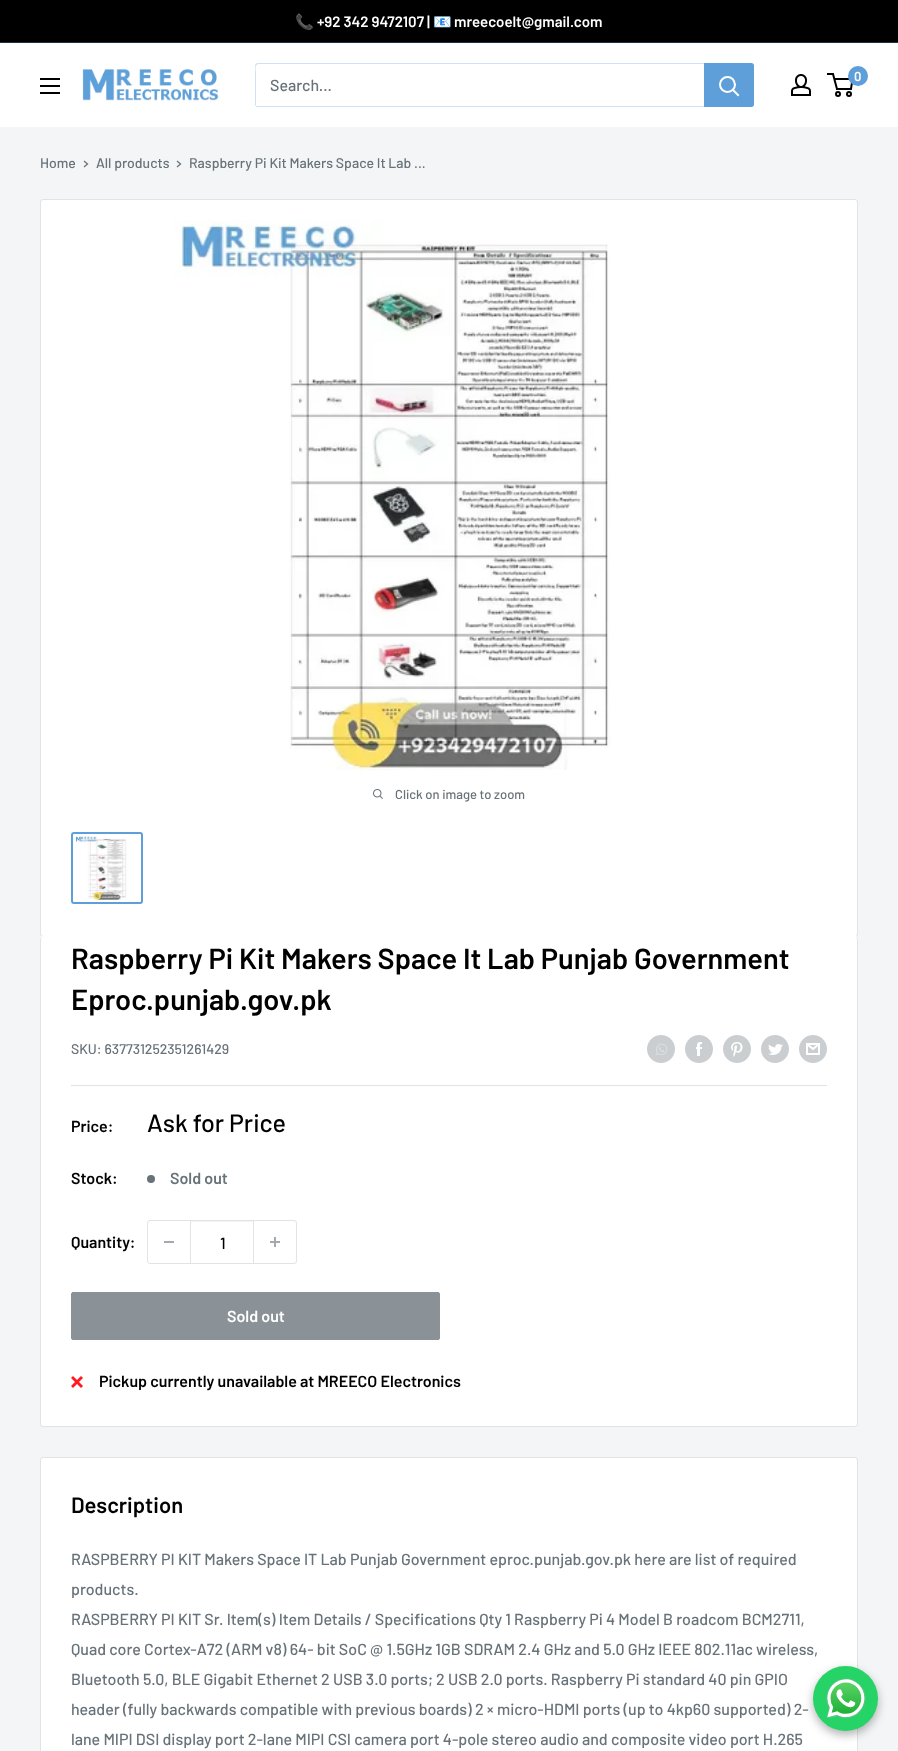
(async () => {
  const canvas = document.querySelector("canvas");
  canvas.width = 898;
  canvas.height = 1751;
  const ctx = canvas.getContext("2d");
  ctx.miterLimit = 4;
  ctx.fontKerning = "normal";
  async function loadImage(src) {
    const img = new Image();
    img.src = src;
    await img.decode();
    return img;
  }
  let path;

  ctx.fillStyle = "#f3f5f6";
  ctx.fillRect(0, 0, 898, 1751);
  for (const [x, y, w, h, color] of [
    [0, 0, 898, 42, "#000000"],
    [0, 42, 898, 1, "#1c3041"],
    [0, 43, 898, 84, "#ffffff"],
  ]) {
    ctx.fillStyle = color;
    ctx.fillRect(x, y, w, h);
  }
  ctx.drawImage(await loadImage("img/1.png"), 82, 69, 137, 32);
  ctx.drawImage(await loadImage("img/2.png"), 791, 74, 20, 22);
  ctx.beginPath();
  ctx.arc(838, 94, 2, 0, Math.PI * 2);
  ctx.strokeStyle = "#000000";
  ctx.lineWidth = 2;
  ctx.stroke();
  ctx.beginPath();
  ctx.arc(849, 94, 2, 0, Math.PI * 2);
  ctx.stroke();
  path = new Path2D("M834.5 79H852.5L851 89H837L833 74H827");
  ctx.stroke(path);
  ctx.fillStyle = "#5e9fd9";
  ctx.beginPath();
  ctx.arc(858, 76, 10, 0, Math.PI * 2);
  ctx.fill();
  ctx.drawImage(await loadImage("img/3.png"), 40, 78, 20, 16);
  ctx.fillStyle = "#cfe2f4";
  path = new Path2D("M256 106C256 107 257 107 258 107H751C753 107 754 106 754 104V66C754 65 754 64 753 64V97C753 99 755 106 750 106Z");
  ctx.fill(path);
  path = new Path2D("M259 64H753C753 63 752 63 751 63H258C256 63 255 64 255 66V104C255 105 255 106 256 106V73C256 71 254 64 259 64Z");
  ctx.fill(path);
  ctx.fillStyle = "#5e9fd9";
  ctx.beginPath();
  ctx.roundRect(704, 63, 50, 44, [0, 3, 3, 0]);
  ctx.fill();
  path = new Path2D("M738 95L733 90");
  ctx.strokeStyle = "#ffffff";
  ctx.lineCap = "square";
  ctx.stroke(path);
  ctx.beginPath();
  ctx.arc(727.5, 84.5, 7.5, 0, Math.PI * 2);
  ctx.stroke();
  path = new Path2D("M84.5 161.5L87.5 164L84.5 166.5");
  ctx.strokeStyle = "#677279";
  ctx.lineWidth = 1.3;
  ctx.stroke(path);
  path = new Path2D("M177.5 161.5L180.5 164L177.5 166.5");
  ctx.stroke(path);
  ctx.fillStyle = "#ffffff";
  ctx.beginPath();
  ctx.roundRect(40.5, 199.5, 817, 737, 2.5);
  ctx.fill();
  ctx.strokeStyle = "#e1e3e4";
  ctx.lineWidth = 1;
  ctx.stroke();
  ctx.drawImage(await loadImage("img/4.png"), 174, 220, 437, 550);
  ctx.drawImage(await loadImage("img/5.png"), 373, 789, 10, 10);
  ctx.beginPath();
  ctx.roundRect(72, 833, 70, 70, 2);
  ctx.strokeStyle = "#5e9fd9";
  ctx.lineWidth = 2;
  ctx.stroke();
  ctx.drawImage(await loadImage("img/6.png"), 75, 836, 52, 64);
  path = new Path2D("M43 936C41 936 40 938 40 940C40 938 41 937 43 937H855C857 937 858 938 858 940C858 938 857 936 855 936Z");
  ctx.fill(path);
  ctx.beginPath();
  ctx.roundRect(40, 937, 818, 490, 3);
  ctx.fill();
  ctx.fillStyle = "#e1e3e4";
  path = new Path2D("M43 937H855C857 937 858 938 858 940V1424C858 1426 857 1427 855 1427H43C41 1427 40 1426 40 1424V940C40 938 41 937 43 937ZM43 937H855C856 937 857 938 857 940V1424C857 1425 856 1426 855 1426H43C42 1426 41 1425 41 1424V940C41 938 42 937 43 937Z");
  ctx.fill(path, "evenodd");
  ctx.drawImage(await loadImage("img/7.png"), 647, 1035, 28, 28);
  ctx.drawImage(await loadImage("img/8.png"), 685, 1035, 28, 28);
  ctx.drawImage(await loadImage("img/9.png"), 723, 1035, 28, 28);
  ctx.drawImage(await loadImage("img/10.png"), 761, 1035, 28, 28);
  ctx.drawImage(await loadImage("img/11.png"), 799, 1035, 28, 28);
  ctx.fillRect(71, 1085, 756, 1);
  ctx.fillStyle = "#677279";
  ctx.beginPath();
  ctx.arc(151, 1179, 4, 0, Math.PI * 2);
  ctx.fill();
  ctx.beginPath();
  ctx.roundRect(147.5, 1220.5, 149, 43, 2.5);
  ctx.strokeStyle = "#e1e3e4";
  ctx.lineWidth = 1;
  ctx.stroke();
  for (const [x, y, w, h, color] of [
    [164, 1241, 10, 2, "#a4aaaf"],
    [191, 1221, 62, 1, "#f3f4f4"],
    [253, 1221, 1, 42, "#e1e3e4"],
    [190, 1221, 1, 42, "#e1e3e4"],
  ]) {
    ctx.fillStyle = color;
    ctx.fillRect(x, y, w, h);
  }
  ctx.drawImage(await loadImage("img/12.png"), 270, 1237, 10, 10);
  ctx.fillStyle = "#8a9297";
  ctx.beginPath();
  ctx.roundRect(71.5, 1292.5, 368, 47, 1.5);
  ctx.fill();
  ctx.strokeStyle = "#8a9297";
  ctx.stroke();
  ctx.drawImage(await loadImage("img/13.png"), 71, 1376, 12, 12);
  ctx.fillStyle = "#ffffff";
  ctx.beginPath();
  ctx.roundRect(40.5, 1457.5, 817, 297, 2.5);
  ctx.fill();
  ctx.strokeStyle = "#e1e3e4";
  ctx.stroke();
  ctx.fillStyle = "rgba(0, 0, 0, 0.3)";
  ctx.filter = "blur(5px)";
  ctx.beginPath();
  ctx.roundRect(813, 1670, 65, 65, 32.5);
  ctx.fill();
  ctx.filter = "none";
  ctx.fillStyle = "#25d366";
  ctx.beginPath();
  ctx.arc(845.5, 1698.5, 32.5, 0, Math.PI * 2);
  ctx.fill();
  ctx.drawImage(await loadImage("img/14.png"), 825, 1677, 42, 42);
  ctx.font = "bold 15px Noto Color Emoji";
  ctx.fillStyle = "#ffffff";
  ctx.fillText("📞", 295, 27);
  ctx.font = "600 15px Barlow";
  ctx.fillText("+92 342 9472107 |", 317, 27);
  ctx.font = "bold 15px Noto Color Emoji";
  ctx.fillText("📧", 433, 27);
  ctx.font = "600 15px Barlow";
  ctx.fillText("mreecoelt@gmail.com", 454, 27);
  ctx.font = "600 13px Barlow";
  ctx.fillText("0", 854, 81);
  ctx.font = "500 16px Barlow";
  ctx.fillStyle = "#677279";
  ctx.fillText("Search...", 270, 91);
  ctx.font = "500 14px Barlow";
  for (const [text, x, y] of [
    ["Home", 40, 168],
    ["All products", 96, 168],
    ["Raspberry Pi Kit Makers Space It Lab ...", 189, 168],
  ]) {
    ctx.fillText(text, x, y);
  }
  ctx.font = "500 13px Barlow";
  ctx.fillText("Click on image to zoom", 395, 799);
  ctx.font = "600 29px Barlow";
  ctx.fillStyle = "#000000";
  ctx.fillText("Raspberry Pi Kit Makers Space It Lab Punjab Government", 71, 969);
  ctx.fillText("Eproc.punjab.gov.pk", 71, 1010);
  ctx.font = "500 14px Barlow";
  ctx.fillStyle = "#677279";
  ctx.fillText("SKU: 637731252351261429", 71, 1054);
  ctx.font = "600 16px Barlow";
  ctx.fillStyle = "#000000";
  ctx.fillText("Price:", 71, 1132);
  ctx.font = "500 25px Barlow";
  ctx.fillText("Ask for Price", 147, 1132);
  ctx.font = "600 16px Barlow";
  ctx.fillText("Stock:", 71, 1184);
  ctx.fillStyle = "#677279";
  ctx.fillText("Sold out", 170, 1184);
  ctx.fillStyle = "#000000";
  ctx.fillText("Quantity:", 71, 1248);
  ctx.font = "500 16px Barlow";
  ctx.fillText("1", 220, 1249);
  ctx.font = "600 16px Barlow";
  ctx.fillStyle = "#ffffff";
  ctx.fillText("Sold out", 227, 1322);
  ctx.fillStyle = "#000000";
  ctx.fillText("Pickup currently unavailable at MREECO Electronics", 99, 1387);
  ctx.font = "600 22px Barlow";
  ctx.fillText("Description", 71, 1513);
  ctx.font = "500 16px Barlow";
  ctx.fillStyle = "#677279";
  for (const [text, x, y] of [
    ["RASPBERRY PI KIT Makers Space IT Lab Punjab Government eproc.punjab.gov.pk here are list of required", 71, 1565],
    ["products.", 71, 1595],
    ["RASPBERRY PI KIT Sr. Item(s) Item Details / Specifications Qty 1 Raspberry Pi 4 Model B roadcom BCM2711,", 71, 1625],
    ["Quad core Cortex-A72 (ARM v8) 64- bit SoC @ 1.5GHz 1GB SDRAM 2.4 GHz and 5.0 GHz IEEE 802.11ac wireless,", 71, 1655],
    ["Bluetooth 5.0, BLE Gigabit Ethernet 2 USB 3.0 ports; 2 USB 2.0 ports. Raspberry Pi standard 40 pin GPIO", 71, 1685],
    ["header (fully backwards compatible with previous boards) 2 × micro-HDMI ports (up to 4kp60 supported) 2-", 71, 1715],
    ["lane MIPI DSI display port 2-lane MIPI CSI camera port 4-pole stereo audio and composite video port H.265", 71, 1745],
  ]) {
    ctx.fillText(text, x, y);
  }
})();
